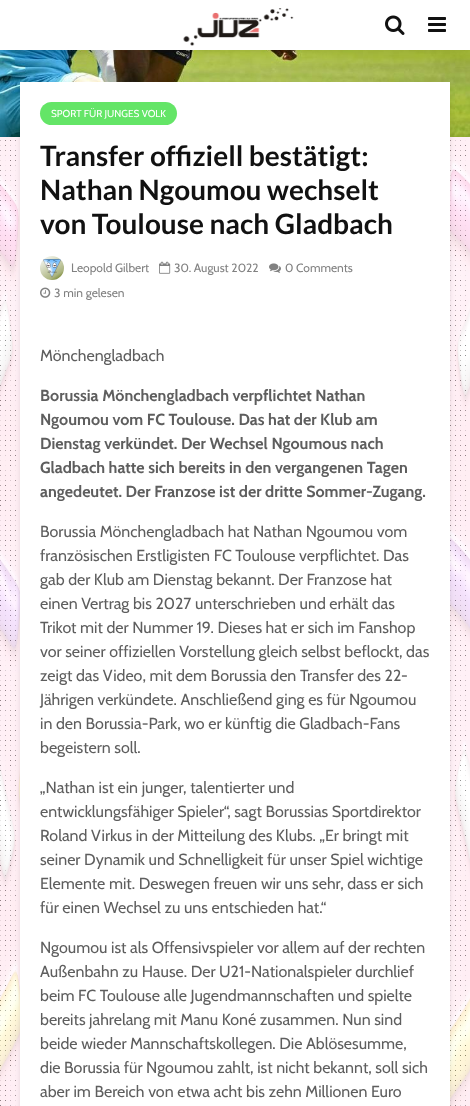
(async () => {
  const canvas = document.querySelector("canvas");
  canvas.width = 470;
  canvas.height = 1106;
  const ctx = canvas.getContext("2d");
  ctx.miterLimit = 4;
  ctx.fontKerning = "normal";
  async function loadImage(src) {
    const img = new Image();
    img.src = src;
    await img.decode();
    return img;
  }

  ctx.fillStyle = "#ffffff";
  ctx.fillRect(0, 0, 470, 1106);
  ctx.drawImage(await loadImage("img/1.png"), 0, 140, 466, 966);
  ctx.drawImage(await loadImage("img/5.png"), 0, 50, 470, 87);
  ctx.fillStyle = "rgba(0, 0, 0, 0.15)";
  ctx.filter = "blur(10px)";
  ctx.beginPath();
  ctx.rect(0, 0, 470, 50);
  ctx.fill();
  ctx.filter = "none";
  ctx.fillStyle = "#ffffff";
  ctx.fillRect(0, 0, 470, 50);
  ctx.drawImage(await loadImage("img/2.png"), 183, 8, 111, 38);
  ctx.drawImage(await loadImage("img/3.png"), 385, 15, 20, 20);
  ctx.drawImage(await loadImage("img/4.png"), 428, 17, 18, 15);
  ctx.drawImage(await loadImage("img/10.png"), 0, 137, 470, 969);
  ctx.fillStyle = "rgba(0, 1, 1, 0.1)";
  ctx.filter = "blur(2.5px)";
  ctx.beginPath();
  ctx.rect(20, 85, 430, 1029);
  ctx.fill();
  ctx.filter = "none";
  ctx.fillStyle = "#ffffff";
  ctx.fillRect(20, 82, 430, 1024);
  ctx.fillStyle = "#64e567";
  ctx.beginPath();
  ctx.roundRect(40, 102, 137, 23, 11.5);
  ctx.fill();
  ctx.drawImage(await loadImage("img/6.png"), 40, 256, 24, 24);
  ctx.drawImage(await loadImage("img/7.png"), 159, 261, 12, 13);
  ctx.drawImage(await loadImage("img/8.png"), 269, 263, 12, 10);
  ctx.drawImage(await loadImage("img/9.png"), 40, 287, 11, 11);
  ctx.font = "10px Cabin";
  ctx.fillStyle = "#ffffff";
  ctx.fillText("SPORT FÜR JUNGES VOLK", 51, 117);
  ctx.font = "bold 28px Lato";
  ctx.fillStyle = "#111111";
  for (const [text, x, y] of [
    ["Transfer offiziell bestätigt:", 40, 166],
    ["Nathan Ngoumou wechselt", 40, 200],
    ["von Toulouse nach Gladbach", 40, 234],
  ]) {
    ctx.fillText(text, x, y);
  }
  ctx.font = "12px Cabin";
  ctx.fillStyle = "#818181";
  for (const [text, x, y] of [
    ["Leopold Gilbert", 71, 272],
    ["30. August 2022", 174, 272],
    ["0 Comments", 285, 272],
    ["3 min gelesen", 54, 297],
  ]) {
    ctx.fillText(text, x, y);
  }
  ctx.font = "16px Cabin";
  ctx.fillStyle = "#5e5e5e";
  ctx.fillText("Mönchengladbach", 40, 361);
  ctx.font = "bold 16px Cabin";
  for (const [text, x, y] of [
    ["Borussia Mönchengladbach verpflichtet Nathan", 40, 401],
    ["Ngoumou vom FC Toulouse. Das hat der Klub am", 40, 425],
    ["Dienstag verkündet. Der Wechsel Ngoumous nach", 40, 449],
    ["Gladbach hatte sich bereits in den vergangenen Tagen", 40, 473],
    ["angedeutet. Der Franzose ist der dritte Sommer-Zugang.", 40, 497],
  ]) {
    ctx.fillText(text, x, y);
  }
  ctx.font = "16px Cabin";
  for (const [text, x, y] of [
    ["Borussia Mönchengladbach hat Nathan Ngoumou vom", 40, 537],
    ["französischen Erstligisten FC Toulouse verpflichtet. Das", 40, 561],
    ["gab der Klub am Dienstag bekannt. Der Franzose hat", 40, 585],
    ["einen Vertrag bis 2027 unterschrieben und erhält das", 40, 609],
    ["Trikot mit der Nummer 19. Dieses hat er sich im Fanshop", 40, 633],
    ["vor seiner offiziellen Vorstellung gleich selbst beflockt, das", 40, 657],
    ["zeigt das Video, mit dem Borussia den Transfer des 22-", 40, 681],
    ["Jährigen verkündete. Anschließend ging es für Ngoumou", 40, 705],
    ["in den Borussia-Park, wo er künftig die Gladbach-Fans", 40, 729],
    ["begeistern soll.", 40, 753],
    ["„Nathan ist ein junger, talentierter und", 40, 793],
    ["entwicklungsfähiger Spieler“, sagt Borussias Sportdirektor", 40, 817],
    ["Roland Virkus in der Mitteilung des Klubs. „Er bringt mit", 40, 841],
    ["seiner Dynamik und Schnelligkeit für unser Spiel wichtige", 40, 865],
    ["Elemente mit. Deswegen freuen wir uns sehr, dass er sich", 40, 889],
    ["für einen Wechsel zu uns entschieden hat.“", 40, 913],
    ["Ngoumou ist als Offensivspieler vor allem auf der rechten", 40, 953],
    ["Außenbahn zu Hause. Der U21-Nationalspieler durchlief", 40, 977],
    ["beim FC Toulouse alle Jugendmannschaften und spielte", 40, 1001],
    ["bereits jahrelang mit Manu Koné zusammen. Nun sind", 40, 1025],
    ["beide wieder Mannschaftskollegen. Die Ablösesumme,", 40, 1049],
    ["die Borussia für Ngoumou zahlt, ist nicht bekannt, soll sich", 40, 1073],
    ["aber im Bereich von etwa acht bis zehn Millionen Euro", 40, 1097],
  ]) {
    ctx.fillText(text, x, y);
  }
})();
